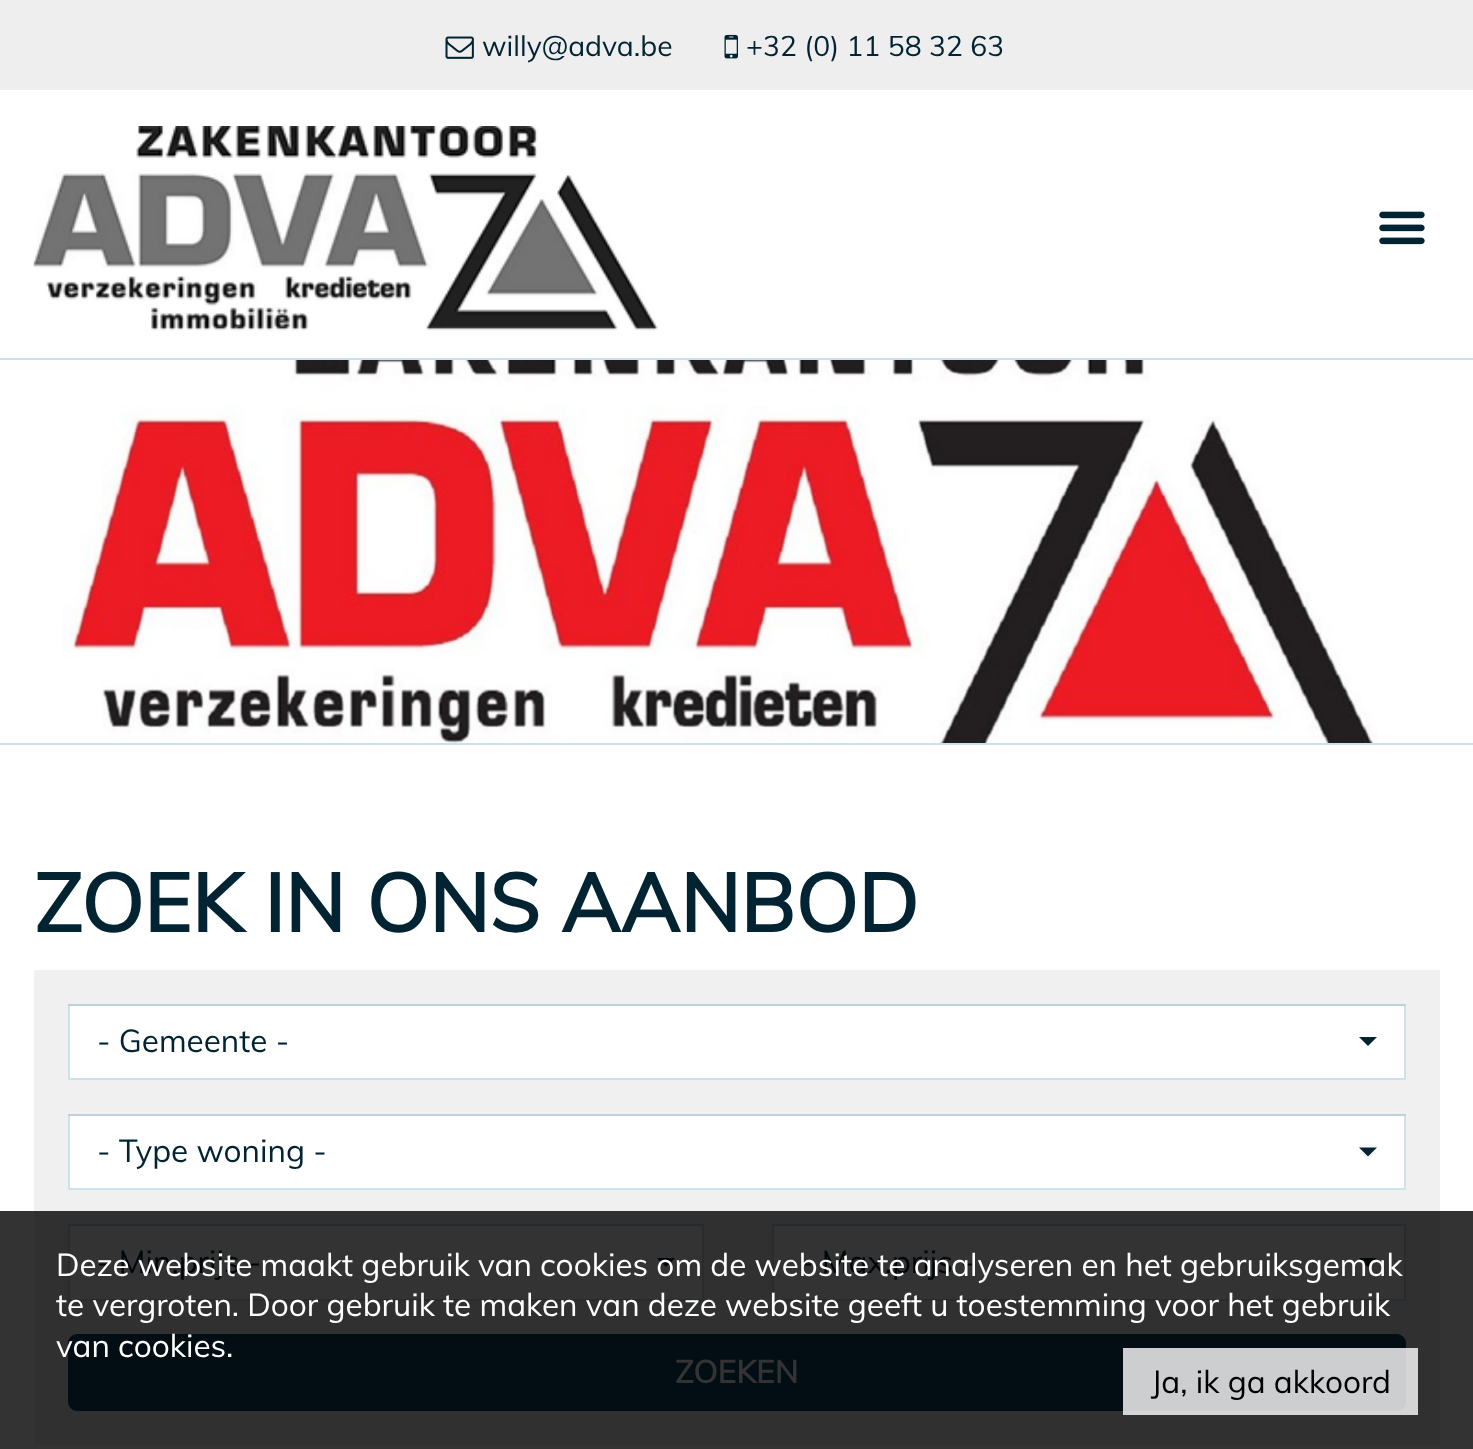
(async () => {
  const canvas = document.querySelector("canvas");
  canvas.width = 1473;
  canvas.height = 1449;
  const ctx = canvas.getContext("2d");
  ctx.miterLimit = 4;
  ctx.fontKerning = "normal";
  async function loadImage(src) {
    const img = new Image();
    img.src = src;
    await img.decode();
    return img;
  }
  let path;

  ctx.fillStyle = "#ffffff";
  ctx.fillRect(0, 0, 1473, 1449);
  ctx.fillStyle = "#333333";
  ctx.fillRect(0, 1211, 1473, 238);
  ctx.fillStyle = "#eeeeee";
  ctx.fillRect(0, 0, 1473, 90);
  ctx.drawImage(await loadImage("img/1.png"), 445, 36, 29, 23);
  ctx.drawImage(await loadImage("img/2.png"), 724, 34, 14, 25);
  ctx.fillStyle = "#cde1ea";
  ctx.fillRect(0, 358, 1473, 2);
  ctx.drawImage(await loadImage("img/3.png"), 33, 126, 625, 205);
  ctx.drawImage(await loadImage("img/4.png"), 1379, 211, 46, 34);
  ctx.fillRect(0, 743, 1473, 2);
  ctx.drawImage(await loadImage("img/5.png"), 62, 360, 1315, 383);
  for (const [x, y, w, h, color] of [
    [34, 970, 1406, 241, "#f0f0f0"],
    [34, 1211, 1406, 234, "#303030"],
    [68, 1006, 1338, 74, "#ffffff"],
    [68, 1004, 1338, 2, "#ececec"],
  ]) {
    ctx.fillStyle = color;
    ctx.fillRect(x, y, w, h);
  }
  ctx.strokeStyle = "rgba(3, 105, 150, 0.2)";
  ctx.lineWidth = 2;
  ctx.strokeRect(69, 1005, 1336, 74);
  ctx.fillStyle = "#012332";
  path = new Path2D("M1359 1037H1377L1368 1046Z");
  ctx.fill(path);
  ctx.fillStyle = "#ffffff";
  ctx.fillRect(68, 1116, 1338, 74);
  ctx.fillStyle = "#ececec";
  ctx.fillRect(68, 1114, 1338, 2);
  ctx.strokeRect(69, 1115, 1336, 74);
  ctx.fillStyle = "#012332";
  path = new Path2D("M1359 1147.5H1377L1368 1156.5Z");
  ctx.fill(path);
  ctx.fillStyle = "#333333";
  ctx.fillRect(68, 1226, 636, 75);
  ctx.strokeStyle = "rgba(1, 21, 30, 0.2)";
  ctx.strokeRect(69, 1225, 634, 75);
  ctx.fillStyle = "#00070a";
  path = new Path2D("M657 1258H675L666 1267Z");
  ctx.fill(path);
  ctx.fillStyle = "#333333";
  ctx.fillRect(772, 1226, 634, 75);
  ctx.strokeRect(773, 1225, 632, 75);
  ctx.fillStyle = "#00070a";
  path = new Path2D("M1359 1258H1377L1368 1267Z");
  ctx.fill(path);
  ctx.fillStyle = "#020e14";
  ctx.beginPath();
  ctx.roundRect(69, 1335, 1336, 75, 8);
  ctx.fill();
  ctx.strokeStyle = "#020e14";
  ctx.stroke();
  ctx.fillStyle = "rgba(255, 255, 255, 0.8)";
  ctx.fillRect(1123, 1348, 295, 67);
  ctx.font = "28.25px Muli";
  ctx.fillStyle = "#012332";
  ctx.fillText("willy@adva.be", 482, 56);
  ctx.fillText("+32 (0) 11 58 32 63", 746, 56);
  ctx.font = "bold 81px Muli";
  ctx.fillText("ZOEK IN ONS AANBOD", 34, 932);
  ctx.font = "31.5px Muli";
  ctx.fillText("- Gemeente -", 97, 1052);
  ctx.fillText("- Type woning -", 97, 1162);
  ctx.fillStyle = "#00070a";
  ctx.fillText("- Min.prijs -", 97, 1273);
  ctx.fillText("- Max.prijs -", 800, 1273);
  ctx.font = "bold 31.5px Muli";
  ctx.fillStyle = "#333333";
  ctx.fillText("ZOEKEN", 675, 1383);
  ctx.font = "31.5px Muli";
  ctx.fillStyle = "#ffffff";
  for (const [text, x, y] of [
    ["Deze website maakt gebruik van cookies om de website te analyseren en het gebruiksgemak", 56, 1276],
    ["te vergroten. Door gebruik te maken van deze website geeft u toestemming voor het gebruik", 56, 1316],
    ["van cookies.", 56, 1357],
  ]) {
    ctx.fillText(text, x, y);
  }
  ctx.fillStyle = "#000000";
  ctx.fillText("Ja, ik ga akkoord", 1151, 1393);
})();
